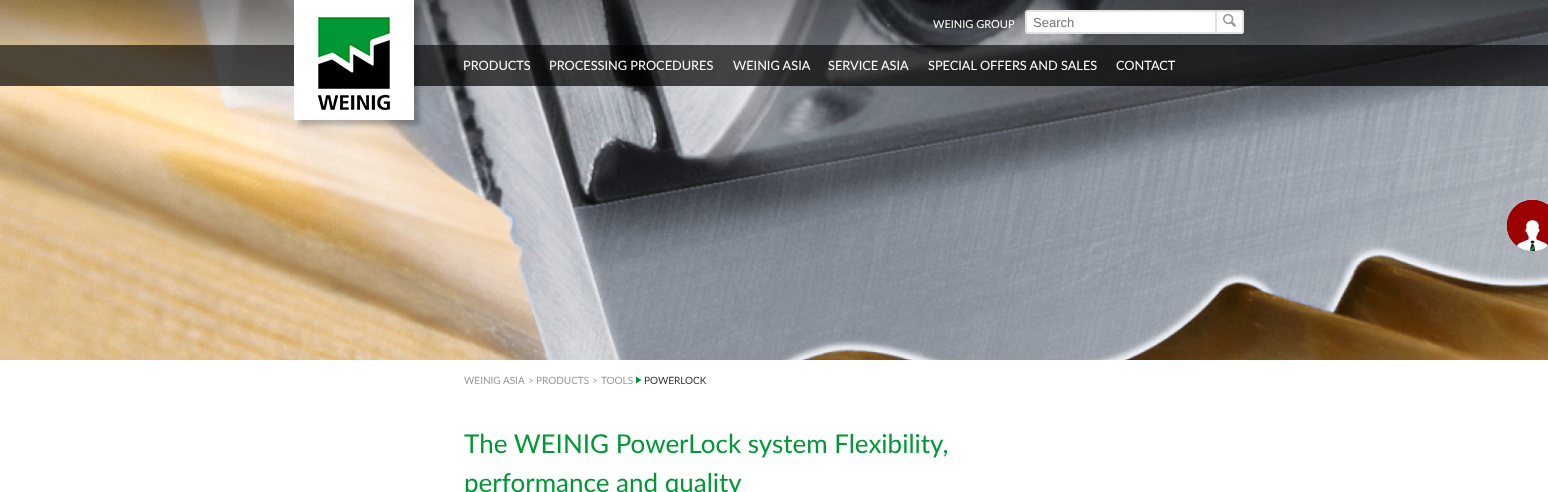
(async () => {
  const canvas = document.querySelector("canvas");
  canvas.width = 1548;
  canvas.height = 492;
  const ctx = canvas.getContext("2d");
  ctx.miterLimit = 4;
  ctx.fontKerning = "normal";
  async function loadImage(src) {
    const img = new Image();
    img.src = src;
    await img.decode();
    return img;
  }
  let path;

  ctx.fillStyle = "#ffffff";
  ctx.fillRect(0, 0, 1548, 492);
  ctx.drawImage(await loadImage("img/1.png"), 0, 0, 1548, 360);
  ctx.beginPath();
  ctx.roundRect(1026, 11, 190, 22, [2, 0, 0, 2]);
  ctx.fill();
  ctx.strokeStyle = "#e3e3e3";
  ctx.lineWidth = 2;
  ctx.stroke();
  ctx.beginPath();
  ctx.roundRect(1217, 10, 27, 24, [0, 3, 3, 0]);
  ctx.fill();
  ctx.fillStyle = "#e3e3e3";
  path = new Path2D("M1217 10H1241C1242.5 10 1244 11.5 1244 13V31C1244 32.5 1242.5 34 1241 34H1217ZM1217 12H1241C1241.5 12 1242 12.5 1242 13V31C1242 31.5 1241.5 32 1241 32H1217Z");
  ctx.fill(path, "evenodd");
  ctx.drawImage(await loadImage("img/2.png"), 1223, 13, 13, 14);
  ctx.fillStyle = "rgba(0, 0, 0, 0.7)";
  ctx.fillRect(0, 45, 1548, 41);
  ctx.fillStyle = "rgba(0, 0, 0, 0.25)";
  ctx.filter = "blur(2.5px)";
  ctx.beginPath();
  ctx.rect(299, 5, 120, 120);
  ctx.fill();
  ctx.filter = "none";
  ctx.fillStyle = "#ffffff";
  ctx.fillRect(294, 0, 120, 120);
  ctx.drawImage(await loadImage("img/3.png"), 317, 17, 73, 93);
  ctx.drawImage(await loadImage("img/4.png"), 1507, 200, 41, 51);
  ctx.fillStyle = "#009835";
  path = new Path2D("M636 376.5V383.5L641.5 380Z");
  ctx.fill(path);
  ctx.font = "11px Lato";
  ctx.fillStyle = "#ffffff";
  ctx.fillText("WEINIG GROUP", 933, 28);
  ctx.font = "13px Liberation Sans";
  ctx.fillStyle = "#757575";
  ctx.fillText("Search", 1033, 27);
  ctx.font = "12.75px Lato";
  ctx.fillStyle = "#ffffff";
  for (const [text, x, y] of [
    ["PRODUCTS", 463, 70],
    ["PROCESSING PROCEDURES", 549, 70],
    ["WEINIG ASIA", 733, 70],
    ["SERVICE ASIA", 828, 70],
    ["SPECIAL OFFERS AND SALES", 928, 70],
    ["CONTACT", 1116, 70],
  ]) {
    ctx.fillText(text, x, y);
  }
  ctx.font = "10px Lato";
  ctx.fillStyle = "#999999";
  for (const [text, x, y] of [
    ["WEINIG ASIA", 464, 384],
    [">", 528, 384],
    ["PRODUCTS", 536, 384],
    [">", 592, 384],
    ["TOOLS", 601, 384],
  ]) {
    ctx.fillText(text, x, y);
  }
  ctx.fillStyle = "#333333";
  ctx.fillText("POWERLOCK", 644, 384);
  ctx.font = "26px Lato";
  ctx.fillStyle = "#009835";
  ctx.fillText("The WEINIG PowerLock system Flexibility,", 464, 453);
  ctx.fillText("performance and quality", 464, 492);
})();
